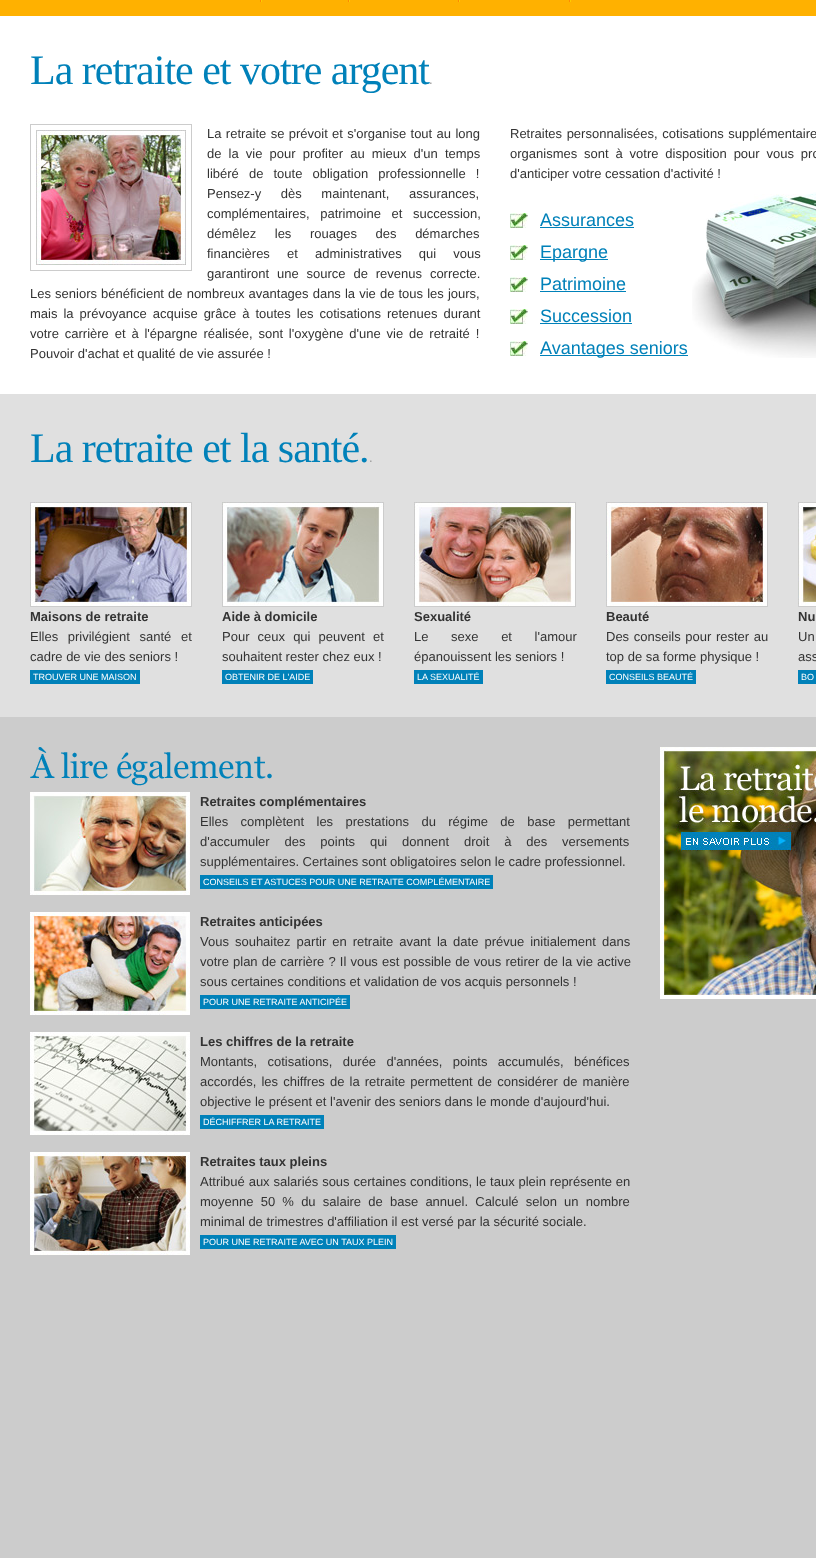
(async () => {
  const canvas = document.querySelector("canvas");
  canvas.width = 816;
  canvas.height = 1558;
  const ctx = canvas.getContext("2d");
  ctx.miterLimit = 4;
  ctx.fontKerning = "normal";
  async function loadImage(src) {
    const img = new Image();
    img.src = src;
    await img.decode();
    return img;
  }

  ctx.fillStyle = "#ffffff";
  ctx.fillRect(0, 0, 816, 1558);
  ctx.drawImage(await loadImage("img/1.png"), 0, 0, 816, 16);
  ctx.drawImage(await loadImage("img/2.png"), 260, 0, 2, 2);
  ctx.drawImage(await loadImage("img/2.png"), 348, 0, 2, 2);
  ctx.drawImage(await loadImage("img/2.png"), 458, 0, 2, 2);
  ctx.drawImage(await loadImage("img/2.png"), 569, 0, 2, 2);
  ctx.strokeStyle = "#cccccc";
  ctx.strokeRect(30.5, 124.5, 161, 146);
  ctx.drawImage(await loadImage("img/3.png"), 36, 130, 150, 135);
  ctx.drawImage(await loadImage("img/4.png"), 692, 192, 124, 166);
  ctx.drawImage(await loadImage("img/5.png"), 510, 213, 18, 15);
  ctx.fillStyle = "#0081b9";
  ctx.fillRect(540, 227, 94, 1);
  ctx.drawImage(await loadImage("img/5.png"), 510, 245, 18, 15);
  ctx.fillRect(540, 259, 68, 1);
  ctx.drawImage(await loadImage("img/5.png"), 510, 277, 18, 15);
  ctx.fillRect(540, 291, 86, 1);
  ctx.drawImage(await loadImage("img/5.png"), 510, 309, 18, 15);
  ctx.fillRect(540, 323, 92, 1);
  ctx.drawImage(await loadImage("img/5.png"), 510, 341, 18, 15);
  ctx.fillRect(540, 355, 148, 1);
  ctx.fillStyle = "#e0e0e0";
  ctx.fillRect(0, 394, 816, 323);
  ctx.drawImage(await loadImage("img/6.png"), 30, 502, 162, 105);
  ctx.fillStyle = "#0081b9";
  ctx.fillRect(30, 670, 110, 14);
  ctx.drawImage(await loadImage("img/7.png"), 222, 502, 162, 105);
  ctx.fillRect(222, 670, 91, 14);
  ctx.drawImage(await loadImage("img/8.png"), 414, 502, 162, 105);
  ctx.fillRect(414, 670, 69, 14);
  ctx.drawImage(await loadImage("img/9.png"), 606, 502, 162, 105);
  ctx.fillRect(606, 670, 90, 14);
  ctx.drawImage(await loadImage("img/10.png"), 798, 502, 18, 105);
  ctx.fillRect(798, 670, 18, 14);
  ctx.fillStyle = "#cccccc";
  ctx.fillRect(0, 717, 816, 841);
  ctx.drawImage(await loadImage("img/11.png"), 30, 747, 242, 39);
  ctx.drawImage(await loadImage("img/12.png"), 30, 792, 160, 103);
  ctx.fillStyle = "#0081b9";
  ctx.fillRect(200, 875, 293, 14);
  ctx.drawImage(await loadImage("img/13.png"), 30, 912, 160, 103);
  ctx.fillRect(200, 995, 150, 14);
  ctx.drawImage(await loadImage("img/14.png"), 30, 1032, 160, 103);
  ctx.fillRect(200, 1115, 124, 14);
  ctx.drawImage(await loadImage("img/15.png"), 30, 1152, 160, 103);
  ctx.fillRect(200, 1235, 196, 14);
  ctx.drawImage(await loadImage("img/16.png"), 660, 747, 156, 252);
  ctx.letterSpacing = "-1px";
  ctx.font = "42px Liberation Serif";
  ctx.fillText("La retraite et votre argent", 30, 84);
  ctx.letterSpacing = "0px";
  ctx.font = "13px Liberation Sans";
  ctx.fillStyle = "#999999";
  ctx.fillText(".", 429, 84);
  ctx.wordSpacing = "0.75px";
  ctx.fillStyle = "#333333";
  ctx.fillText("La retraite se prévoit et s'organise tout au long", 207, 138);
  ctx.wordSpacing = "3.5px";
  ctx.fillText("de la vie pour profiter au mieux d'un temps", 207, 158);
  ctx.wordSpacing = "6.5px";
  ctx.fillText("libéré de toute obligation professionnelle !", 207, 178);
  ctx.wordSpacing = "16px";
  ctx.fillText("Pensez-y dès maintenant, assurances,", 207, 198);
  ctx.wordSpacing = "7px";
  ctx.fillText("complémentaires, patrimoine et succession,", 207, 218);
  ctx.wordSpacing = "15px";
  ctx.fillText("démêlez les rouages des démarches", 207, 238);
  ctx.wordSpacing = "13.5px";
  ctx.fillText("financières et administratives qui vous", 207, 258);
  ctx.wordSpacing = "4.25px";
  ctx.fillText("garantiront une source de revenus correcte.", 207, 278);
  ctx.wordSpacing = "0.5px";
  ctx.fillText("Les seniors bénéficient de nombreux avantages dans la vie de tous les jours,", 30, 298);
  ctx.wordSpacing = "2.4px";
  ctx.fillText("mais la prévoyance acquise grâce à toutes les cotisations retenues durant", 30, 318);
  ctx.wordSpacing = "2.25px";
  ctx.fillText("votre carrière et à l'épargne réalisée, sont l'oxygène d'une vie de retraité !", 30, 338);
  ctx.wordSpacing = "0px";
  ctx.fillText("Pouvoir d'achat et qualité de vie assurée !", 30, 358);
  ctx.wordSpacing = "1px";
  ctx.fillText("Retraites personnalisées, cotisations supplémentaire", 510, 138);
  ctx.wordSpacing = "3.25px";
  ctx.fillText("organismes sont à votre disposition pour vous pro", 510, 158);
  ctx.wordSpacing = "0px";
  ctx.fillText("d'anticiper votre cessation d'activité !", 510, 178);
  ctx.font = "18px Liberation Sans";
  ctx.fillStyle = "#0081b9";
  for (const [text, x, y] of [
    ["Assurances", 540, 226],
    ["Epargne", 540, 258],
    ["Patrimoine", 540, 290],
    ["Succession", 540, 322],
    ["Avantages seniors", 540, 354],
  ]) {
    ctx.fillText(text, x, y);
  }
  ctx.letterSpacing = "-1px";
  ctx.font = "42px Liberation Serif";
  ctx.fillText("La retraite et la santé.", 30, 462);
  ctx.letterSpacing = "0px";
  ctx.font = "13px Liberation Sans";
  ctx.fillStyle = "#999999";
  ctx.fillText(".", 369, 462);
  ctx.font = "bold 13px Liberation Sans";
  ctx.fillStyle = "#333333";
  ctx.fillText("Maisons de retraite", 30, 621);
  ctx.wordSpacing = "6px";
  ctx.font = "13px Liberation Sans";
  ctx.fillText("Elles privilégient santé et", 30, 641);
  ctx.wordSpacing = "0px";
  ctx.fillText("cadre de vie des seniors !", 30, 661);
  ctx.font = "9px Liberation Sans";
  ctx.fillStyle = "#ffffff";
  ctx.fillText("TROUVER UNE MAISON", 33, 680);
  ctx.font = "bold 13px Liberation Sans";
  ctx.fillStyle = "#333333";
  ctx.fillText("Aide à domicile", 222, 621);
  ctx.wordSpacing = "4.5px";
  ctx.font = "13px Liberation Sans";
  ctx.fillText("Pour ceux qui peuvent et", 222, 641);
  ctx.wordSpacing = "0px";
  ctx.fillText("souhaitent rester chez eux !", 222, 661);
  ctx.font = "9px Liberation Sans";
  ctx.fillStyle = "#ffffff";
  ctx.fillText("OBTENIR DE L'AIDE", 225, 680);
  ctx.font = "bold 13px Liberation Sans";
  ctx.fillStyle = "#333333";
  ctx.fillText("Sexualité", 414, 621);
  ctx.wordSpacing = "19px";
  ctx.font = "13px Liberation Sans";
  ctx.fillText("Le sexe et l'amour", 414, 641);
  ctx.wordSpacing = "0px";
  ctx.fillText("épanouissent les seniors !", 414, 661);
  ctx.font = "9px Liberation Sans";
  ctx.fillStyle = "#ffffff";
  ctx.fillText("LA SEXUALITÉ", 417, 680);
  ctx.font = "bold 13px Liberation Sans";
  ctx.fillStyle = "#333333";
  ctx.fillText("Beauté", 606, 621);
  ctx.wordSpacing = "1px";
  ctx.font = "13px Liberation Sans";
  ctx.fillText("Des conseils pour rester au", 606, 641);
  ctx.wordSpacing = "0px";
  ctx.fillText("top de sa forme physique !", 606, 661);
  ctx.font = "9px Liberation Sans";
  ctx.fillStyle = "#ffffff";
  ctx.fillText("CONSEILS BEAUTÉ", 609, 680);
  ctx.font = "bold 13px Liberation Sans";
  ctx.fillStyle = "#333333";
  ctx.fillText("Nu", 798, 621);
  ctx.wordSpacing = "10px";
  ctx.font = "13px Liberation Sans";
  ctx.fillText("Un", 798, 641);
  ctx.wordSpacing = "0px";
  ctx.fillText("ass", 798, 661);
  ctx.font = "9px Liberation Sans";
  ctx.fillStyle = "#ffffff";
  ctx.fillText("BO", 801, 680);
  ctx.font = "bold 13px Liberation Sans";
  ctx.fillStyle = "#333333";
  ctx.fillText("Retraites complémentaires", 200, 806);
  ctx.wordSpacing = "8.75px";
  ctx.font = "13px Liberation Sans";
  ctx.fillText("Elles complètent les prestations du régime de base permettant", 200, 826);
  ctx.wordSpacing = "11.25px";
  ctx.fillText("d'accumuler des points qui donnent droit à des versements", 200, 846);
  ctx.wordSpacing = "0px";
  ctx.fillText("supplémentaires. Certaines sont obligatoires selon le cadre professionnel.", 200, 866);
  ctx.font = "9px Liberation Sans";
  ctx.fillStyle = "#ffffff";
  ctx.fillText("CONSEILS ET ASTUCES POUR UNE RETRAITE COMPLÉMENTAIRE", 203, 885);
  ctx.font = "bold 13px Liberation Sans";
  ctx.fillStyle = "#333333";
  ctx.fillText("Retraites anticipées", 200, 926);
  ctx.wordSpacing = "2.4px";
  ctx.font = "13px Liberation Sans";
  ctx.fillText("Vous souhaitez partir en retraite avant la date prévue initialement dans", 200, 946);
  ctx.wordSpacing = "0.5px";
  ctx.fillText("votre plan de carrière ? Il vous est possible de vous retirer de la vie active", 200, 966);
  ctx.wordSpacing = "0px";
  ctx.fillText("sous certaines conditions et validation de vos acquis personnels !", 200, 986);
  ctx.font = "9px Liberation Sans";
  ctx.fillStyle = "#ffffff";
  ctx.fillText("POUR UNE RETRAITE ANTICIPÉE", 203, 1005);
  ctx.font = "bold 13px Liberation Sans";
  ctx.fillStyle = "#333333";
  ctx.fillText("Les chiffres de la retraite", 200, 1046);
  ctx.wordSpacing = "6.75px";
  ctx.font = "13px Liberation Sans";
  ctx.fillText("Montants, cotisations, durée d'années, points accumulés, bénéfices", 200, 1066);
  ctx.wordSpacing = "1.5px";
  ctx.fillText("accordés, les chiffres de la retraite permettent de considérer de manière", 200, 1086);
  ctx.wordSpacing = "0px";
  ctx.fillText("objective le présent et l'avenir des seniors dans le monde d'aujourd'hui.", 200, 1106);
  ctx.font = "9px Liberation Sans";
  ctx.fillStyle = "#ffffff";
  ctx.fillText("DÉCHIFFRER LA RETRAITE", 203, 1125);
  ctx.font = "bold 13px Liberation Sans";
  ctx.fillStyle = "#333333";
  ctx.fillText("Retraites taux pleins", 200, 1166);
  ctx.wordSpacing = "0.25px";
  ctx.font = "13px Liberation Sans";
  ctx.fillText("Attribué aux salariés sous certaines conditions, le taux plein représente en", 200, 1186);
  ctx.wordSpacing = "3.6px";
  ctx.fillText("moyenne 50 % du salaire de base annuel. Calculé selon un nombre", 200, 1206);
  ctx.wordSpacing = "0px";
  ctx.fillText("minimal de trimestres d'affiliation il est versé par la sécurité sociale.", 200, 1226);
  ctx.font = "9px Liberation Sans";
  ctx.fillStyle = "#ffffff";
  ctx.fillText("POUR UNE RETRAITE AVEC UN TAUX PLEIN", 203, 1245);
})();
